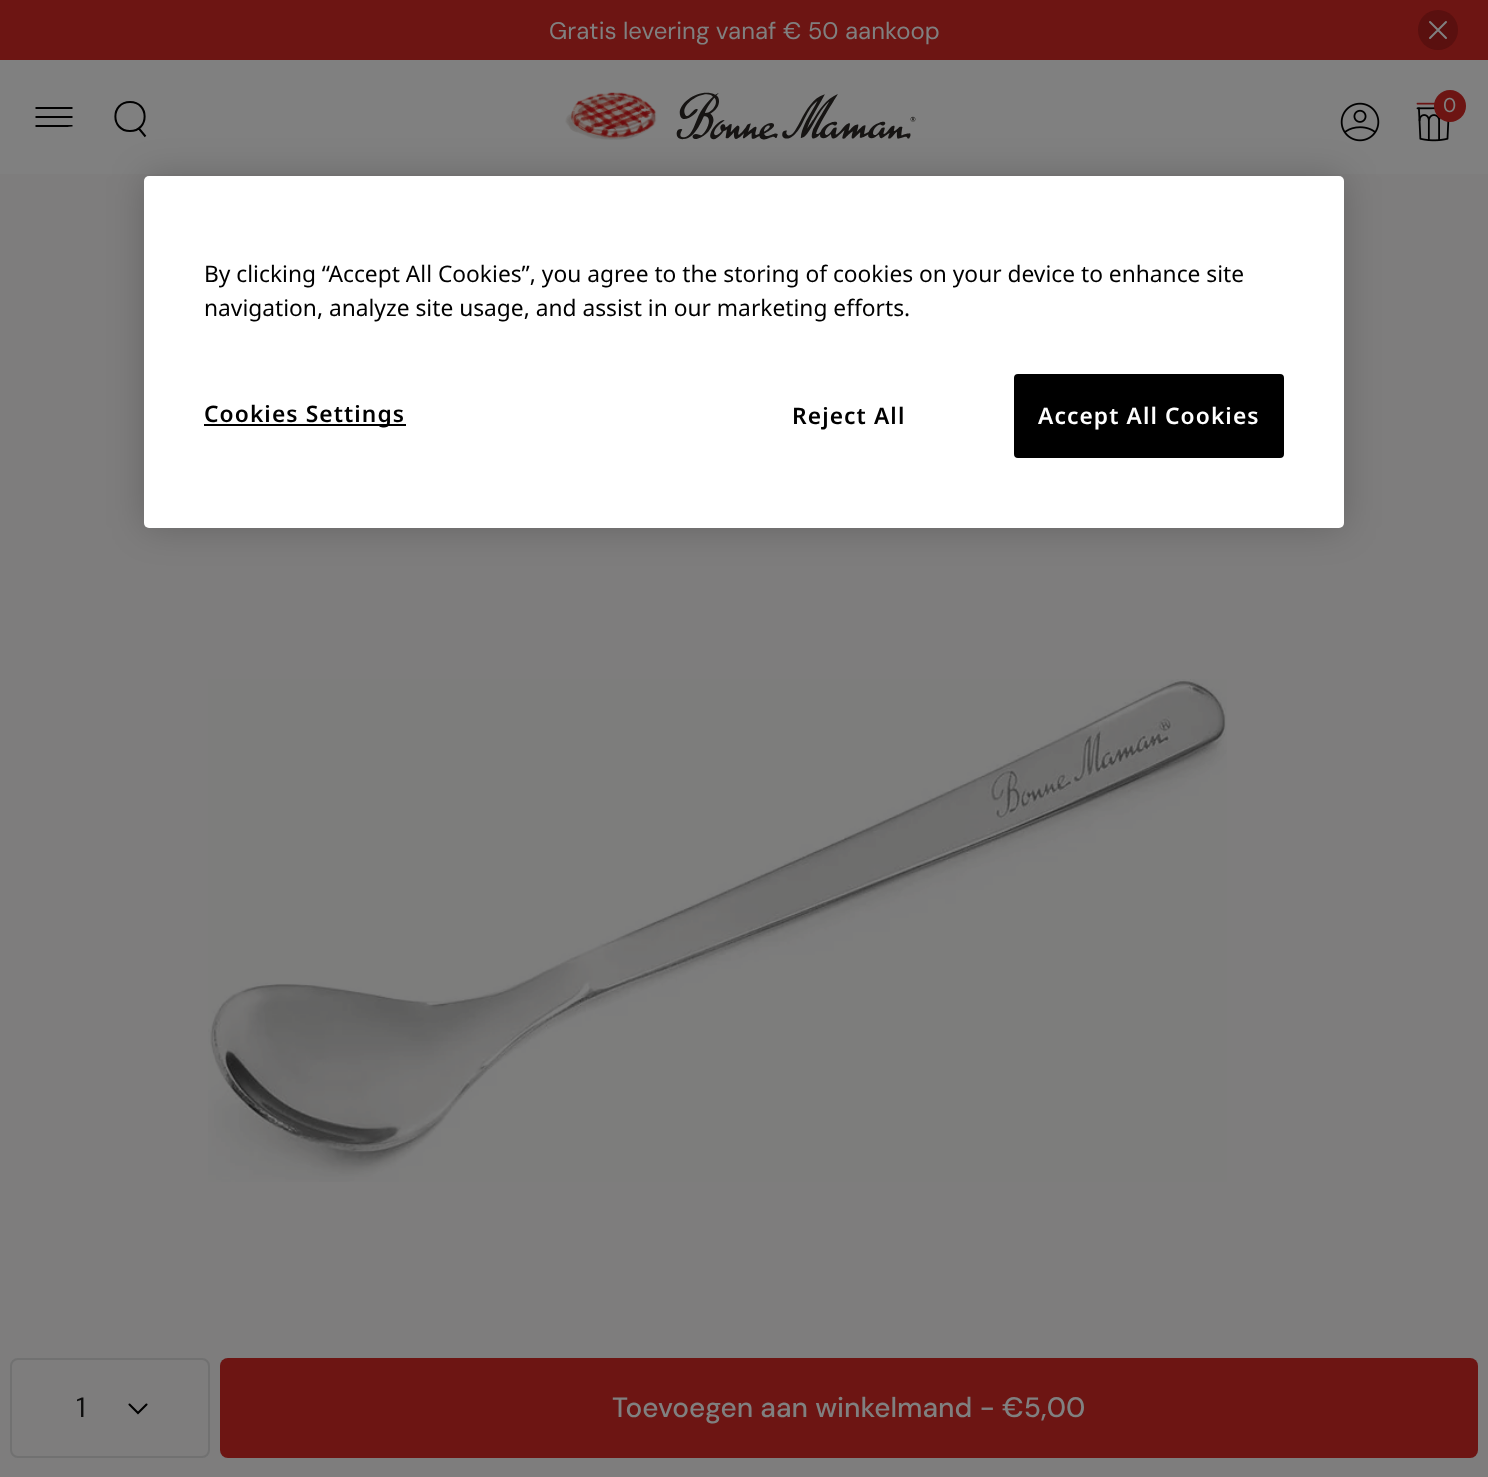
(async () => {
  const canvas = document.querySelector("canvas");
  canvas.width = 1488;
  canvas.height = 1477;
  const ctx = canvas.getContext("2d");
  ctx.miterLimit = 4;
  ctx.fontKerning = "normal";
  async function loadImage(src) {
    const img = new Image();
    img.src = src;
    await img.decode();
    return img;
  }
  let path;

  ctx.fillStyle = "#808080";
  ctx.fillRect(0, 0, 1488, 1477);
  ctx.fillStyle = "#6d1513";
  ctx.fillRect(0, 0, 1488, 60);
  ctx.fillStyle = "#5a100f";
  ctx.beginPath();
  ctx.arc(1438, 30, 20, 0, Math.PI * 2);
  ctx.fill();
  path = new Path2D("M1446 22L1430 38M1430 22L1446 38");
  ctx.strokeStyle = "#808080";
  ctx.lineWidth = 2;
  ctx.lineCap = "round";
  ctx.stroke(path);
  path = new Path2D("M35.5 108H72.5M35.5 117H72.5M35.5 126H72.5");
  ctx.strokeStyle = "#000000";
  ctx.lineWidth = 1.8;
  ctx.lineCap = "butt";
  ctx.stroke(path);
  path = new Path2D("M130 131C149.5 131 149.5 102 130 102C110.5 102 110.5 131 130 131ZM138.5 128L145.5 136.5");
  ctx.lineWidth = 2;
  ctx.stroke(path);
  ctx.drawImage(await loadImage("img/1.png"), 565, 92, 351, 48);
  ctx.drawImage(await loadImage("img/2.png"), 1340, 102, 40, 40);
  ctx.drawImage(await loadImage("img/3.png"), 1416, 102, 34, 40);
  ctx.fillStyle = "#6d1513";
  ctx.beginPath();
  ctx.arc(1450, 106, 16, 0, Math.PI * 2);
  ctx.fill();
  path = new Path2D("M72 154C90 154 90 127.5 72 127.5C54 127.5 54 154 72 154ZM79.5 151L86 159");
  ctx.strokeStyle = "#808080";
  ctx.lineWidth = 1.8;
  ctx.stroke(path);
  ctx.fillStyle = "#7e7d7d";
  ctx.fillRect(0, 174, 1488, 1303);
  ctx.fillStyle = "rgba(0, 0, 0, 0.2)";
  ctx.filter = "blur(18px)";
  ctx.beginPath();
  ctx.roundRect(144, 176, 1200, 352, 5);
  ctx.fill();
  ctx.filter = "none";
  ctx.fillStyle = "#ffffff";
  ctx.beginPath();
  ctx.roundRect(144, 176, 1200, 352, 5);
  ctx.fill();
  ctx.fillStyle = "#000000";
  ctx.fillRect(204, 424, 202, 2);
  ctx.beginPath();
  ctx.roundRect(1015, 375, 268, 82, 3);
  ctx.fill();
  ctx.strokeStyle = "#000000";
  ctx.lineWidth = 2;
  ctx.stroke();
  ctx.drawImage(await loadImage("img/4.png"), 208, 679, 1019, 503);
  path = new Path2D("M146.5 1404.5L138 1413L129.5 1404.5");
  ctx.lineWidth = 2.1;
  ctx.lineCap = "round";
  ctx.stroke(path);
  ctx.beginPath();
  ctx.roundRect(11, 1359, 198, 98, 7);
  ctx.strokeStyle = "#717171";
  ctx.lineWidth = 2;
  ctx.stroke();
  ctx.fillStyle = "#6d1513";
  ctx.beginPath();
  ctx.roundRect(220, 1358, 1258, 100, 8);
  ctx.fill();
  ctx.font = "24px DM Sans";
  ctx.fillStyle = "#808080";
  ctx.fillText("Gratis levering vanaf € 50 aankoop", 549, 39);
  ctx.font = "20px 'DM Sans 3'";
  ctx.fillText("0", 1443, 112);
  ctx.font = "22.75px Noto Sans";
  ctx.fillStyle = "#000000";
  ctx.fillText("By clicking “Accept All Cookies”, you agree to the storing of cookies on your device to enhance site", 204, 282);
  ctx.fillText("navigation, analyze site usage, and assist in our marketing efforts.", 204, 316);
  ctx.letterSpacing = "1.1px";
  ctx.font = "600 22.75px Noto Sans";
  ctx.fillText("Cookies Settings", 204, 422);
  ctx.fillText("Reject All", 792, 424);
  ctx.fillStyle = "#ffffff";
  ctx.fillText("Accept All Cookies", 1038, 424);
  ctx.letterSpacing = "0px";
  ctx.font = "28px 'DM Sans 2'";
  ctx.fillStyle = "#0d0d0d";
  ctx.fillText("1", 76, 1417);
  ctx.font = "500 28px DM Sans";
  ctx.fillStyle = "#808080";
  ctx.fillText("Toevoegen aan winkelmand - €5,00", 612, 1417);
})();
